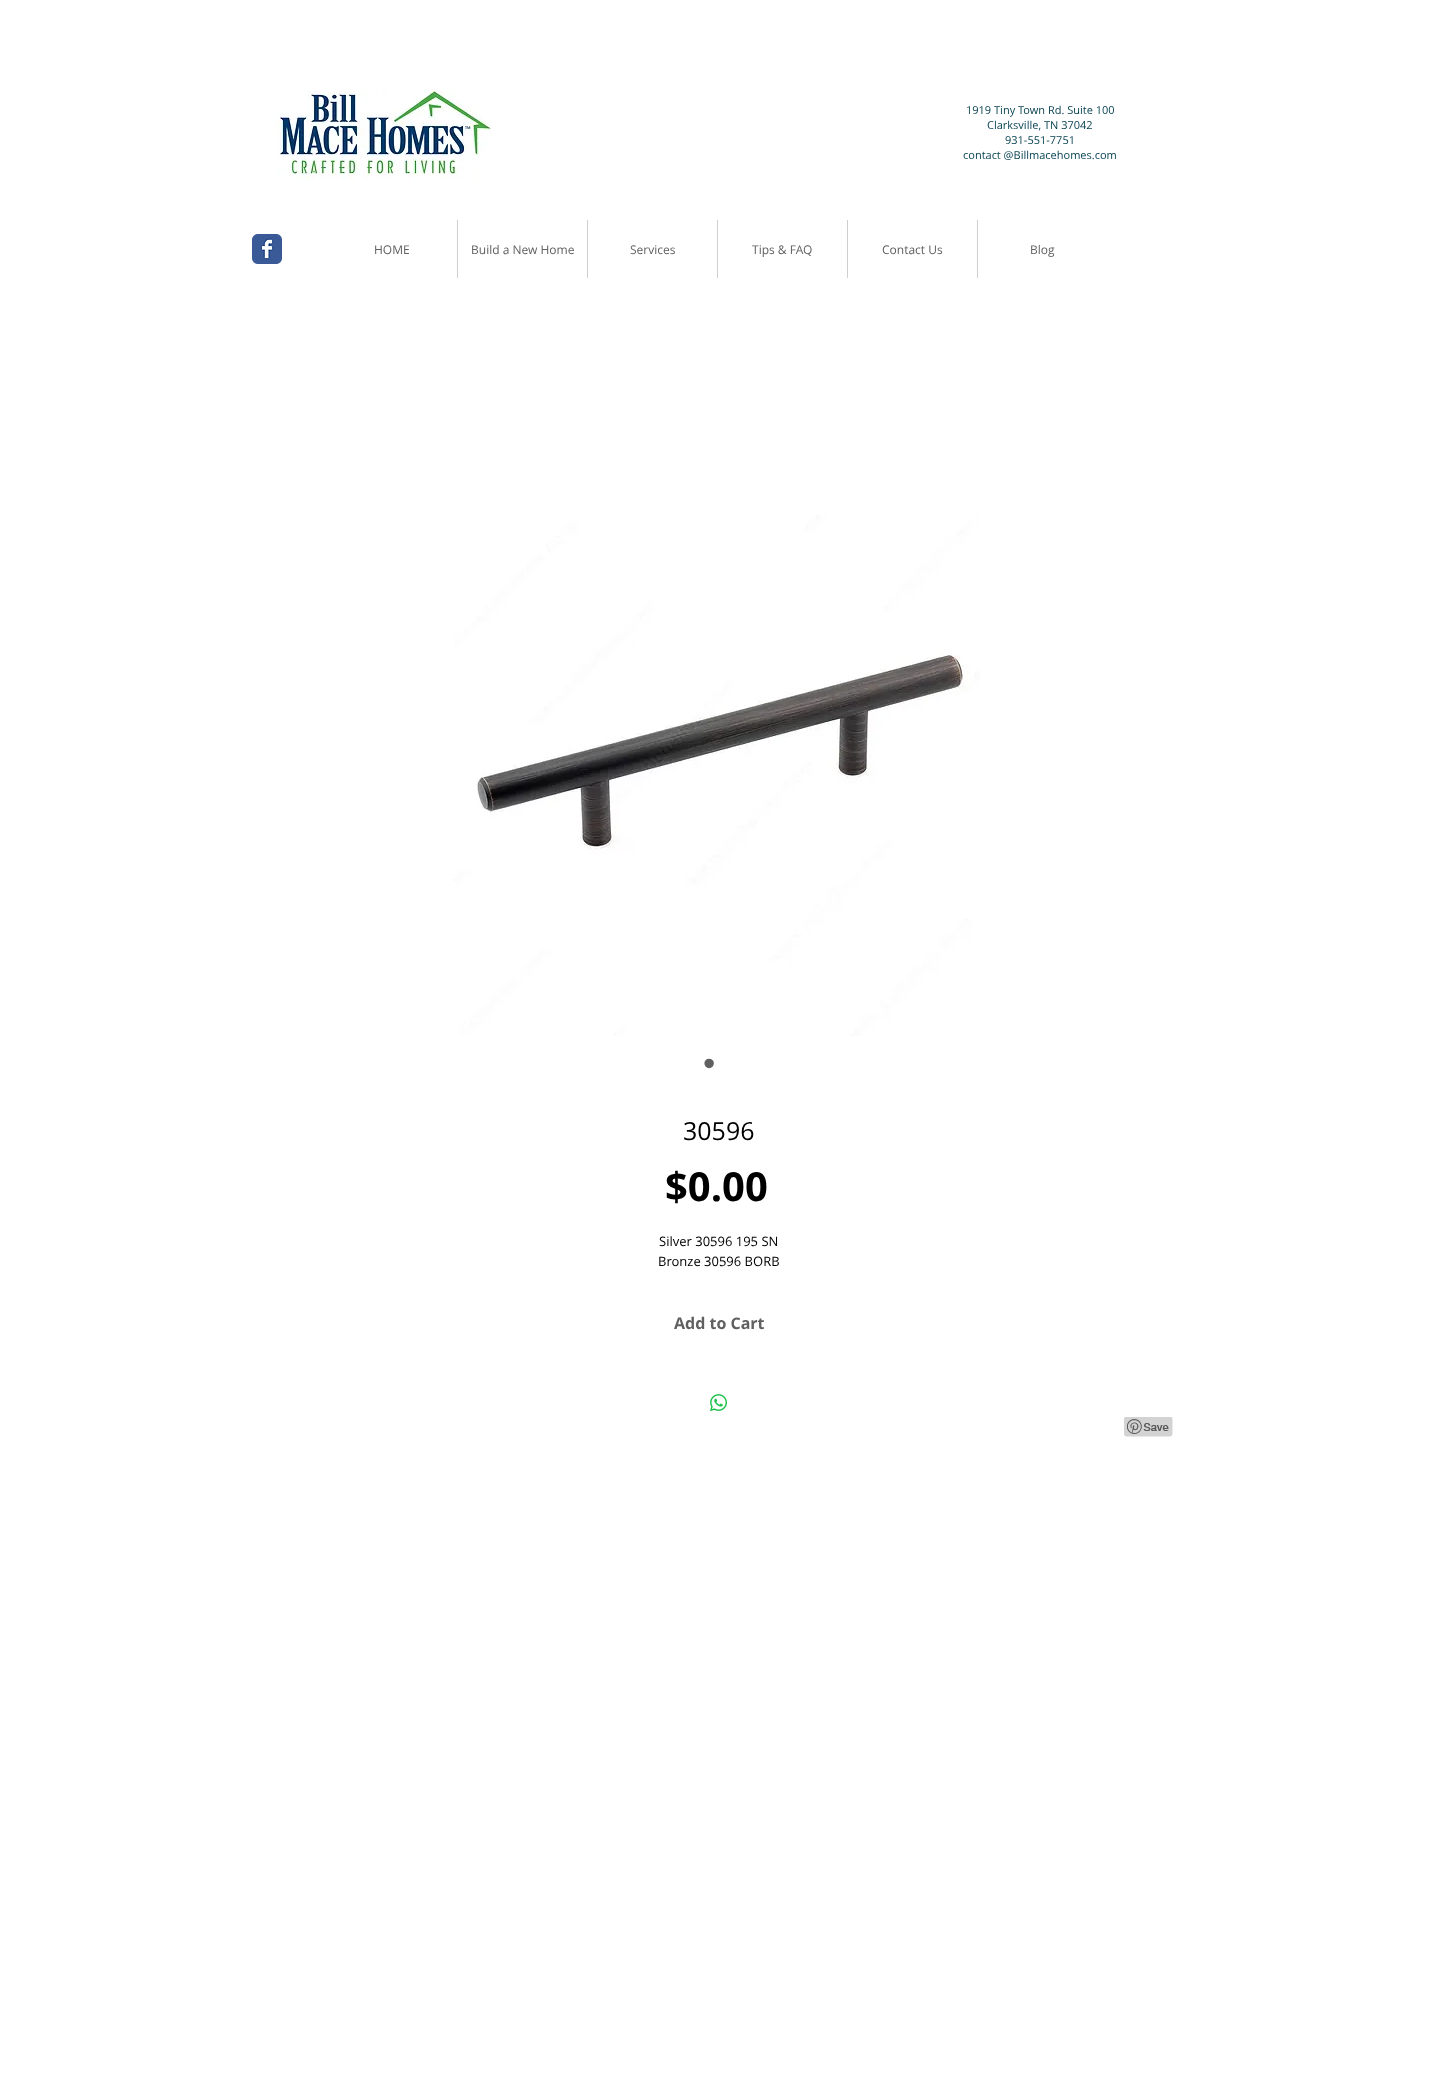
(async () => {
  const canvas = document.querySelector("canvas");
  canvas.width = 1438;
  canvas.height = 2094;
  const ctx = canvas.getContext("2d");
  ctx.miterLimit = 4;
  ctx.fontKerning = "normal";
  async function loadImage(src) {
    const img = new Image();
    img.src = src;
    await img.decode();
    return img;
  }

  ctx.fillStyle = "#ffffff";
  ctx.fillRect(0, 0, 1438, 2094);
  ctx.drawImage(await loadImage("img/1.png"), 276, 90, 216, 89);
  ctx.drawImage(await loadImage("img/2.png"), 252, 234, 30, 30);
  for (const [x, y, w, h, color] of [
    [457, 220, 1, 58, "#cfcfcf"],
    [587, 220, 1, 58, "#cfcfcf"],
    [717, 220, 1, 58, "#cfcfcf"],
    [847, 220, 1, 58, "#cfcfcf"],
    [977, 220, 1, 58, "#cfcfcf"],
  ]) {
    ctx.fillStyle = color;
    ctx.fillRect(x, y, w, h);
  }
  ctx.drawImage(await loadImage("img/3.png"), 453, 515, 527, 521);
  ctx.drawImage(await loadImage("img/4.png"), 710, 1394, 17, 17);
  ctx.drawImage(await loadImage("img/5.png"), 1124, 1417, 49, 20);
  ctx.font = "11px Open Sans";
  ctx.fillStyle = "#003d4d";
  for (const [text, x, y] of [
    ["1919 Tiny Town Rd. Suite 100", 966, 114],
    ["Clarksville, TN 37042", 987, 129],
    ["931-551-7751", 1005, 144],
    ["contact @Billmacehomes.com", 963, 159],
  ]) {
    ctx.fillText(text, x, y);
  }
  ctx.font = "12px Open Sans";
  ctx.fillStyle = "#606060";
  for (const [text, x, y] of [
    ["HOME", 374, 254],
    ["Build a New Home", 471, 254],
    ["Services", 630, 254],
    ["Tips & FAQ", 752, 254],
    ["Contact Us", 882, 254],
    ["Blog", 1030, 254],
  ]) {
    ctx.fillText(text, x, y);
  }
  ctx.font = "35px Liberation Sans";
  ctx.fillText("•", 703, 1075);
  ctx.font = "25px Open Sans";
  ctx.fillStyle = "#000000";
  ctx.fillText("30596", 683, 1140);
  ctx.font = "bold 40px Open Sans";
  ctx.fillText("$0.00", 665, 1201);
  ctx.font = "13px Open Sans";
  ctx.fillText("Silver 30596 195 SN", 659, 1246);
  ctx.fillText("Bronze 30596 BORB", 658, 1266);
  ctx.font = "bold 16px Open Sans";
  ctx.fillStyle = "#606060";
  ctx.fillText("Add to Cart", 674, 1329);
})();
